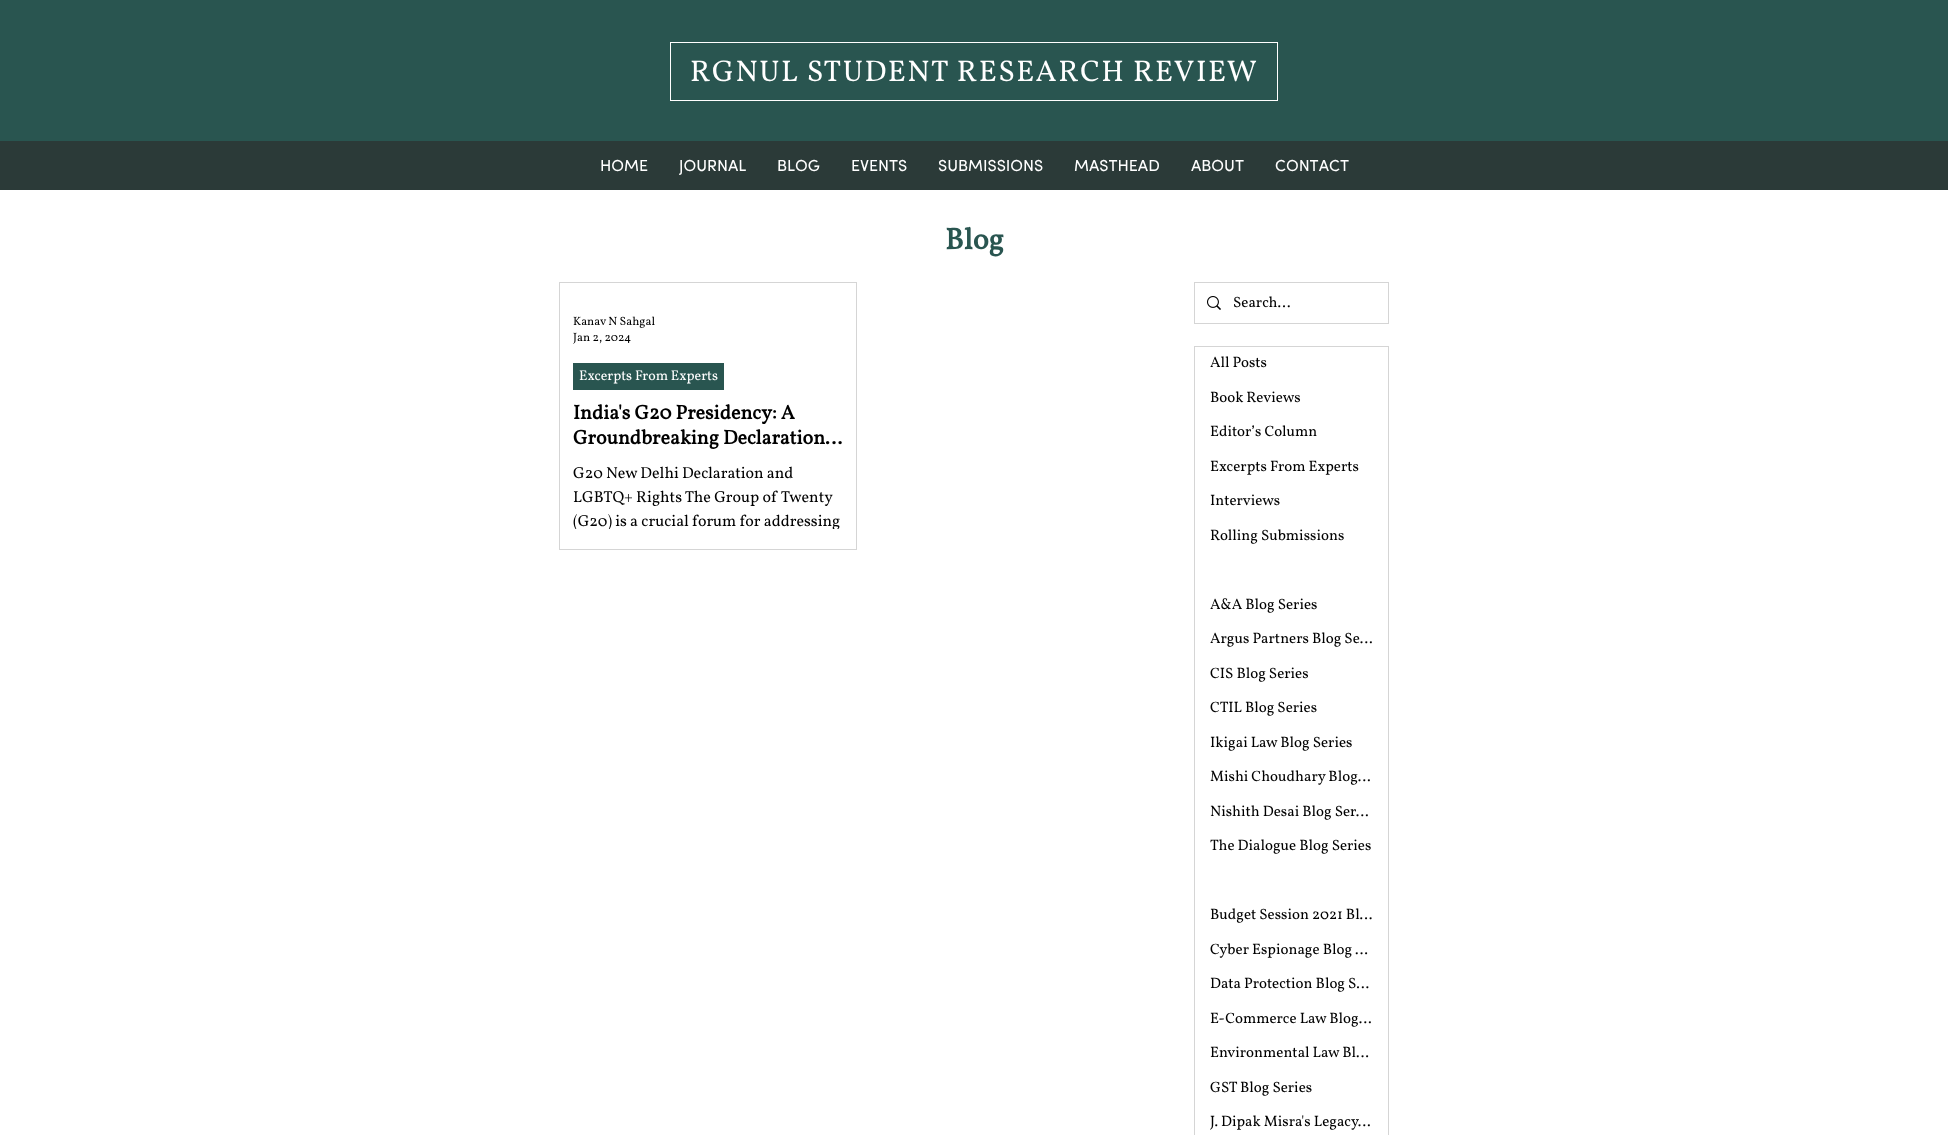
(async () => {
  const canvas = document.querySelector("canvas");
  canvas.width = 1948;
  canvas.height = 1135;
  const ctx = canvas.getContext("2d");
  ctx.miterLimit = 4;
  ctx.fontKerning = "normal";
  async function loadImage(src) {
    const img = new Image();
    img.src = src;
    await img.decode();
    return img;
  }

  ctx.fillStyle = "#ffffff";
  ctx.fillRect(0, 0, 1948, 1135);
  ctx.fillStyle = "#295550";
  ctx.fillRect(0, 0, 1948, 141);
  ctx.strokeStyle = "#ffffff";
  ctx.strokeRect(670.5, 42.5, 607, 58);
  ctx.fillStyle = "#2b3a38";
  ctx.fillRect(0, 141, 1948, 49);
  ctx.strokeStyle = "#d5d5d5";
  ctx.strokeRect(1194.5, 282.5, 194, 41);
  ctx.drawImage(await loadImage("img/1.png"), 1207, 296, 14, 14);
  ctx.strokeRect(559.5, 282.5, 297, 267);
  ctx.fillStyle = "#295550";
  ctx.fillRect(573, 363, 151, 27);
  ctx.strokeRect(1194.5, 346.5, 194, 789);
  ctx.letterSpacing = "1.5px";
  ctx.font = "30px Vollkorn";
  ctx.fillStyle = "#ffffff";
  ctx.fillText("RGNUL STUDENT RESEARCH REVIEW", 690, 81);
  ctx.letterSpacing = "0px";
  ctx.font = "16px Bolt";
  for (const [text, x, y] of [
    ["HOME", 600, 171],
    ["JOURNAL", 679, 171],
    ["BLOG", 777, 171],
    ["EVENTS", 851, 171],
    ["SUBMISSIONS", 938, 171],
    ["MASTHEAD", 1074, 171],
    ["ABOUT", 1191, 171],
    ["CONTACT", 1275, 171],
  ]) {
    ctx.fillText(text, x, y);
  }
  ctx.font = "bold 30px Vollkorn";
  ctx.fillStyle = "#295550";
  ctx.fillText("Blog", 945, 249);
  ctx.font = "15px Vollkorn";
  ctx.fillStyle = "#000000";
  ctx.fillText("Search...", 1233, 307);
  ctx.font = "12px Vollkorn";
  ctx.fillText("Kanav N Sahgal", 573, 325);
  ctx.fillText("Jan 2, 2024", 573, 341);
  ctx.font = "14px Vollkorn";
  ctx.fillStyle = "#ffffff";
  ctx.fillText("Excerpts From Experts", 579, 380);
  ctx.font = "bold 20px Vollkorn";
  ctx.fillStyle = "#000000";
  ctx.fillText("India's G20 Presidency: A", 573, 419);
  ctx.fillText("Groundbreaking Declaration…", 573, 444);
  ctx.font = "16px Vollkorn";
  ctx.fillText("G20 New Delhi Declaration and", 573, 478);
  ctx.fillText("LGBTQ+ Rights The Group of Twenty", 573, 502);
  ctx.save();
  ctx.beginPath();
  ctx.rect(573, 462, 270, 67);
  ctx.clip();
  ctx.fillText("(G20) is a crucial forum for addressing", 573, 526);
  ctx.restore();
  ctx.font = "15px Vollkorn";
  for (const [text, x, y] of [
    ["All Posts", 1210, 367],
    ["Book Reviews", 1210, 402],
    ["Editor’s Column", 1210, 436],
    ["Excerpts From Experts", 1210, 471],
    ["Interviews", 1210, 505],
    ["Rolling Submissions", 1210, 540],
    ["A&A Blog Series", 1210, 609],
    ["Argus Partners Blog Se…", 1210, 643],
    ["CIS Blog Series", 1210, 678],
    ["CTIL Blog Series", 1210, 712],
    ["Ikigai Law Blog Series", 1210, 747],
    ["Mishi Choudhary Blog…", 1210, 781],
    ["Nishith Desai Blog Ser…", 1210, 816],
    ["The Dialogue Blog Series", 1210, 850],
    ["Budget Session 2021 Bl…", 1210, 919],
    ["Cyber Espionage Blog …", 1210, 954],
    ["Data Protection Blog S…", 1210, 988],
    ["E-Commerce Law Blog…", 1210, 1023],
    ["Environmental Law Bl…", 1210, 1057],
    ["GST Blog Series", 1210, 1092],
    ["J. Dipak Misra's Legacy…", 1210, 1126],
  ]) {
    ctx.fillText(text, x, y);
  }
})();
